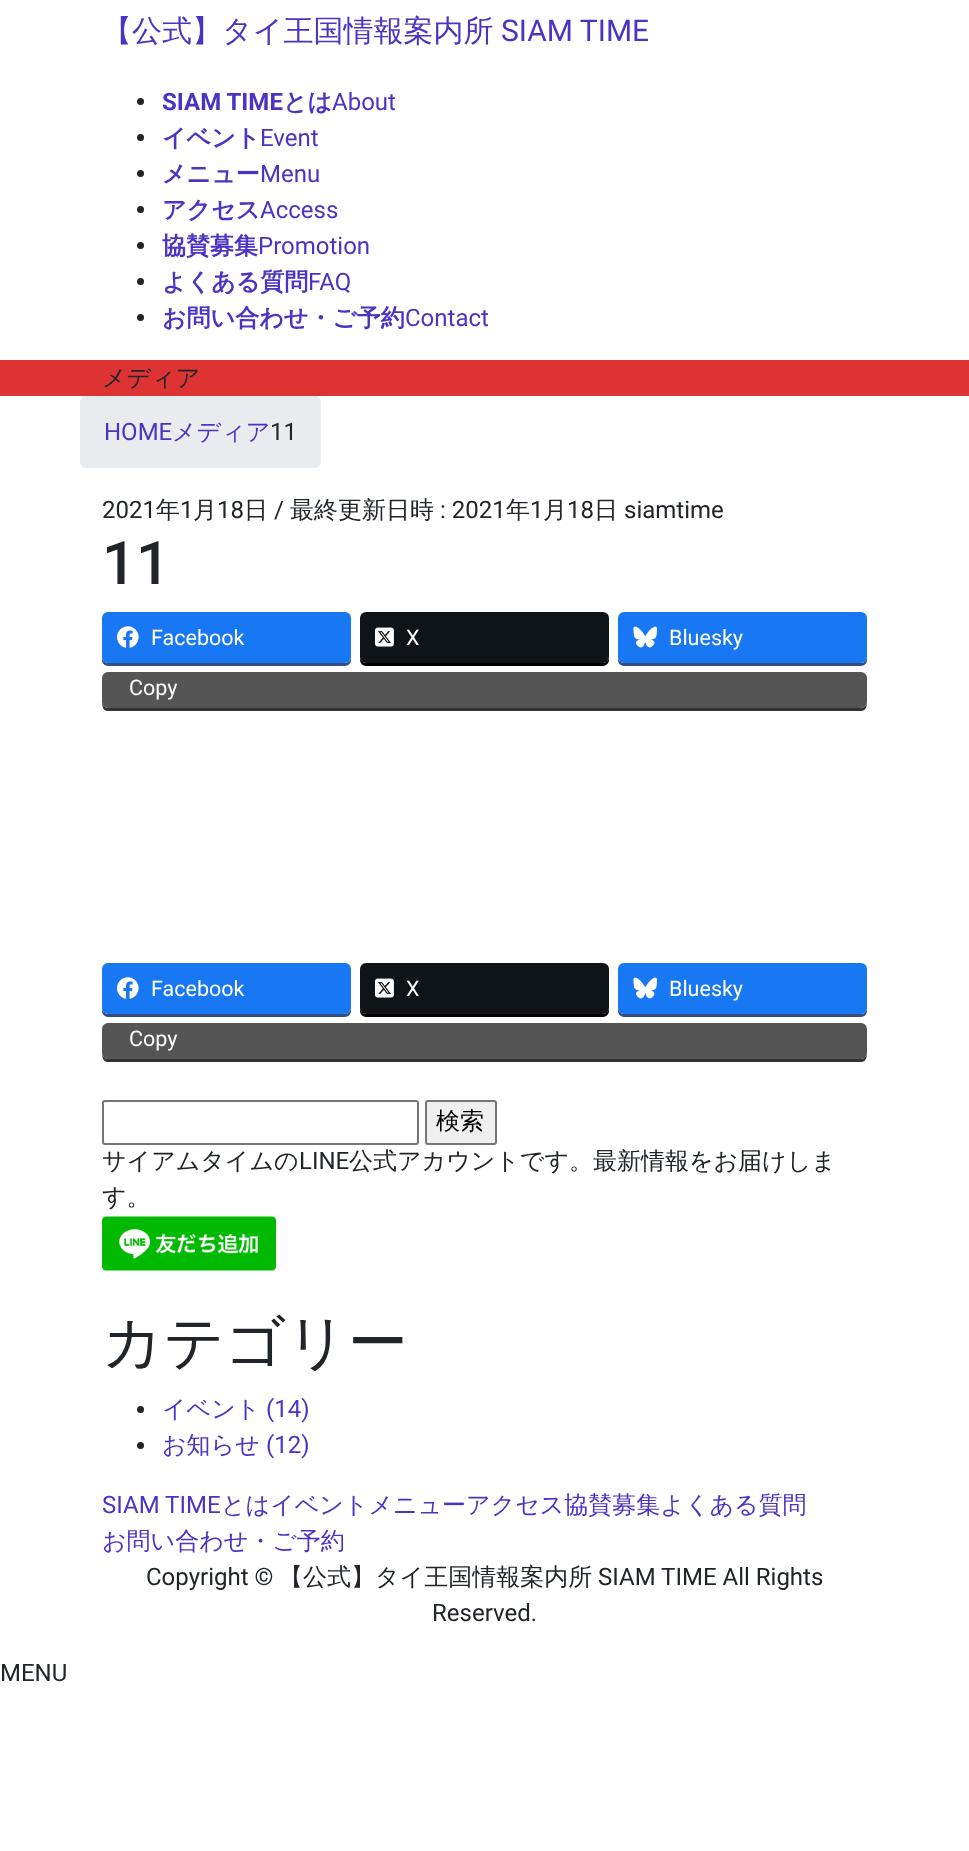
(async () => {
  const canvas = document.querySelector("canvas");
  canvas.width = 969;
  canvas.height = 1851;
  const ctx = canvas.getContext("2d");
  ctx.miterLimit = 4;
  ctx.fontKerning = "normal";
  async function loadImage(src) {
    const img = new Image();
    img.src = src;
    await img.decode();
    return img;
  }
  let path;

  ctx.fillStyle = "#ffffff";
  ctx.fillRect(0, 0, 969, 1851);
  ctx.fillStyle = "#212529";
  ctx.beginPath();
  ctx.arc(140.5, 101.5, 3.5, 0, Math.PI * 2);
  ctx.fill();
  ctx.beginPath();
  ctx.arc(140.5, 137.5, 3.5, 0, Math.PI * 2);
  ctx.fill();
  ctx.beginPath();
  ctx.arc(140.5, 173.5, 3.5, 0, Math.PI * 2);
  ctx.fill();
  ctx.beginPath();
  ctx.arc(140.5, 209.5, 3.5, 0, Math.PI * 2);
  ctx.fill();
  ctx.beginPath();
  ctx.arc(140.5, 245.5, 3.5, 0, Math.PI * 2);
  ctx.fill();
  ctx.beginPath();
  ctx.arc(140.5, 281.5, 3.5, 0, Math.PI * 2);
  ctx.fill();
  ctx.beginPath();
  ctx.arc(140.5, 317.5, 3.5, 0, Math.PI * 2);
  ctx.fill();
  ctx.fillStyle = "#dd3333";
  ctx.fillRect(0, 360, 969, 36);
  ctx.fillStyle = "#e9ecef";
  ctx.beginPath();
  ctx.roundRect(80, 396, 241, 72, 6);
  ctx.fill();
  ctx.fillStyle = "#344e84";
  path = new Path2D("M102 657V660C102 663 105 666 108 666H345C348 666 351 663 351 660V657C351 660 348 663 345 663H108C105 663 102 660 102 657Z");
  ctx.fill(path);
  ctx.fillStyle = "#1877f2";
  ctx.beginPath();
  ctx.roundRect(102, 612, 249, 51, 6);
  ctx.fill();
  ctx.drawImage(await loadImage("img/1.png"), 117, 626, 22, 22);
  ctx.fillStyle = "#000000";
  path = new Path2D("M360 657V660C360 663 363 666 366 666H603C606 666 609 663 609 660V657C609 660 606 663 603 663H366C363 663 360 660 360 657Z");
  ctx.fill(path);
  ctx.fillStyle = "#0f1419";
  ctx.beginPath();
  ctx.roundRect(360, 612, 249, 51, 6);
  ctx.fill();
  ctx.drawImage(await loadImage("img/2.png"), 375, 627, 19, 20);
  ctx.fillStyle = "#344e84";
  path = new Path2D("M618 657V660C618 663 621 666 624 666H861C864 666 867 663 867 660V657C867 660 864 663 861 663H624C621 663 618 660 618 657Z");
  ctx.fill(path);
  ctx.fillStyle = "#1877f2";
  ctx.beginPath();
  ctx.roundRect(618, 612, 249, 51, 6);
  ctx.fill();
  ctx.drawImage(await loadImage("img/3.png"), 633, 626, 25, 22);
  ctx.fillStyle = "#333333";
  path = new Path2D("M102 702C102 706 103 711 108 711H861C866 711 867 706 867 702C867 705 864 708 861 708H108C105 708 102 705 102 702Z");
  ctx.fill(path);
  ctx.fillStyle = "#555555";
  ctx.beginPath();
  ctx.roundRect(102, 672, 765, 36, 6);
  ctx.fill();
  ctx.fillStyle = "#344e84";
  path = new Path2D("M102 1008V1011C102 1014 105 1017 108 1017H345C348 1017 351 1014 351 1011V1008C351 1011 348 1014 345 1014H108C105 1014 102 1011 102 1008Z");
  ctx.fill(path);
  ctx.fillStyle = "#1877f2";
  ctx.beginPath();
  ctx.roundRect(102, 963, 249, 51, 6);
  ctx.fill();
  ctx.drawImage(await loadImage("img/1.png"), 117, 977, 22, 22);
  ctx.fillStyle = "#000000";
  path = new Path2D("M360 1008V1011C360 1014 363 1017 366 1017H603C606 1017 609 1014 609 1011V1008C609 1011 606 1014 603 1014H366C363 1014 360 1011 360 1008Z");
  ctx.fill(path);
  ctx.fillStyle = "#0f1419";
  ctx.beginPath();
  ctx.roundRect(360, 963, 249, 51, 6);
  ctx.fill();
  ctx.drawImage(await loadImage("img/2.png"), 375, 978, 19, 20);
  ctx.fillStyle = "#344e84";
  path = new Path2D("M618 1008V1011C618 1014 621 1017 624 1017H861C864 1017 867 1014 867 1011V1008C867 1011 864 1014 861 1014H624C621 1014 618 1011 618 1008Z");
  ctx.fill(path);
  ctx.fillStyle = "#1877f2";
  ctx.beginPath();
  ctx.roundRect(618, 963, 249, 51, 6);
  ctx.fill();
  ctx.drawImage(await loadImage("img/3.png"), 633, 977, 25, 22);
  ctx.fillStyle = "#333333";
  path = new Path2D("M102 1053C102 1057 103 1062 108 1062H861C866 1062 867 1057 867 1053C867 1056 864 1059 861 1059H108C105 1059 102 1056 102 1053Z");
  ctx.fill(path);
  ctx.fillStyle = "#555555";
  ctx.beginPath();
  ctx.roundRect(102, 1023, 765, 36, 6);
  ctx.fill();
  ctx.beginPath();
  ctx.roundRect(103, 1101, 315, 43, 2);
  ctx.strokeStyle = "#767676";
  ctx.lineWidth = 2;
  ctx.stroke();
  ctx.fillStyle = "#efefef";
  ctx.beginPath();
  ctx.roundRect(426, 1101, 70, 43, 2);
  ctx.fill();
  ctx.stroke();
  ctx.drawImage(await loadImage("img/4.png"), 102, 1216, 174, 55);
  ctx.fillStyle = "#212529";
  ctx.beginPath();
  ctx.arc(140.5, 1409.5, 3.5, 0, Math.PI * 2);
  ctx.fill();
  ctx.beginPath();
  ctx.arc(140.5, 1445.5, 3.5, 0, Math.PI * 2);
  ctx.fill();
  ctx.font = "500 30px WenQuanYi Zen Hei";
  ctx.fillStyle = "#4d33c4";
  ctx.fillText("【公式】タイ王国情報案内所", 102, 41);
  ctx.font = "30px Roboto";
  ctx.fillText("SIAM TIME", 501, 41);
  ctx.font = "bold 24px Roboto";
  ctx.fillText("SIAM TIME", 162, 110);
  ctx.font = "bold 24px WenQuanYi Zen Hei";
  ctx.fillText("とは", 283, 110);
  ctx.font = "24px Roboto";
  ctx.fillText("About", 332, 110);
  ctx.font = "bold 24px WenQuanYi Zen Hei";
  ctx.fillText("イベント", 162, 146);
  ctx.font = "24px Roboto";
  ctx.fillText("Event", 260, 146);
  ctx.font = "bold 24px WenQuanYi Zen Hei";
  ctx.fillText("メニュー", 162, 182);
  ctx.font = "24px Roboto";
  ctx.fillText("Menu", 260, 182);
  ctx.font = "bold 24px WenQuanYi Zen Hei";
  ctx.fillText("アクセス", 162, 218);
  ctx.font = "24px Roboto";
  ctx.fillText("Access", 260, 218);
  ctx.font = "bold 24px WenQuanYi Zen Hei";
  ctx.fillText("協賛募集", 162, 254);
  ctx.font = "24px Roboto";
  ctx.fillText("Promotion", 258, 254);
  ctx.font = "bold 24px WenQuanYi Zen Hei";
  ctx.fillText("よくある質問", 162, 290);
  ctx.font = "24px Roboto";
  ctx.fillText("FAQ", 308, 290);
  ctx.font = "bold 24px WenQuanYi Zen Hei";
  ctx.fillText("お問い合わせ・ご予約", 162, 326);
  ctx.font = "24px Roboto";
  ctx.fillText("Contact", 405, 326);
  ctx.font = "500 24px WenQuanYi Zen Hei";
  ctx.fillStyle = "#212529";
  ctx.fillText("メディア", 102, 386);
  ctx.font = "24px Roboto";
  ctx.fillStyle = "#4d33c4";
  ctx.fillText("HOME", 104, 440);
  ctx.font = "500 24px WenQuanYi Zen Hei";
  ctx.fillText("メディア", 172, 440);
  ctx.font = "24px Roboto";
  ctx.fillStyle = "#212529";
  ctx.fillText("11", 270, 440);
  ctx.fillText("2021", 102, 518);
  ctx.font = "500 24px WenQuanYi Zen Hei";
  ctx.fillText("年", 156, 518);
  ctx.font = "24px Roboto";
  ctx.fillText("1", 180, 518);
  ctx.font = "500 24px WenQuanYi Zen Hei";
  ctx.fillText("月", 193, 518);
  ctx.font = "24px Roboto";
  ctx.fillText("18", 217, 518);
  ctx.font = "500 24px WenQuanYi Zen Hei";
  ctx.fillText("日", 244, 518);
  ctx.font = "24px Roboto";
  ctx.fillText("/", 274, 518);
  ctx.font = "500 24px WenQuanYi Zen Hei";
  ctx.fillText("最終更新日時", 290, 518);
  ctx.font = "24px Roboto";
  ctx.fillText(": 2021", 440, 518);
  ctx.font = "500 24px WenQuanYi Zen Hei";
  ctx.fillText("年", 506, 518);
  ctx.font = "24px Roboto";
  ctx.fillText("1", 530, 518);
  ctx.font = "500 24px WenQuanYi Zen Hei";
  ctx.fillText("月", 543, 518);
  ctx.font = "24px Roboto";
  ctx.fillText("18", 567, 518);
  ctx.font = "500 24px WenQuanYi Zen Hei";
  ctx.fillText("日", 594, 518);
  ctx.font = "24px Roboto";
  ctx.fillText("siamtime", 624, 518);
  ctx.font = "500 60px Roboto";
  ctx.fillText("11", 102, 584);
  ctx.font = "21.5px Roboto";
  ctx.fillStyle = "#ffffff";
  for (const [text, x, y] of [
    ["Facebook", 151, 645],
    ["X", 406, 645],
    ["Bluesky", 669, 645],
    ["Copy", 129, 695],
    ["Facebook", 151, 996],
    ["X", 406, 996],
    ["Bluesky", 669, 996],
    ["Copy", 129, 1046],
  ]) {
    ctx.fillText(text, x, y);
  }
  ctx.font = "500 24px WenQuanYi Zen Hei";
  ctx.fillStyle = "#000000";
  ctx.fillText("検索", 436, 1129);
  ctx.fillStyle = "#212529";
  ctx.fillText("サイアムタイムの", 102, 1169);
  ctx.font = "24px Roboto";
  ctx.fillText("LINE", 299, 1169);
  ctx.font = "500 24px WenQuanYi Zen Hei";
  ctx.fillText("公式アカウントです。最新情報をお届けしま", 349, 1169);
  ctx.fillText("す。", 102, 1205);
  ctx.font = "500 60px WenQuanYi Zen Hei";
  ctx.fillText("カテゴリー", 102, 1363);
  ctx.font = "500 24px WenQuanYi Zen Hei";
  ctx.fillStyle = "#4d33c4";
  ctx.fillText("イベント", 162, 1417);
  ctx.font = "24px Roboto";
  ctx.fillText("(14)", 266, 1417);
  ctx.font = "500 24px WenQuanYi Zen Hei";
  ctx.fillText("お知らせ", 162, 1453);
  ctx.font = "24px Roboto";
  ctx.fillText("(12)", 266, 1453);
  ctx.fillText("SIAM TIME", 102, 1513);
  ctx.font = "500 24px WenQuanYi Zen Hei";
  ctx.fillText("とはイベントメニューアクセス協賛募集よくある質問", 221, 1513);
  ctx.fillText("お問い合わせ・ご予約", 102, 1549);
  ctx.font = "24px Roboto";
  ctx.fillStyle = "#212529";
  ctx.fillText("Copyright ©", 146, 1585);
  ctx.font = "500 24px WenQuanYi Zen Hei";
  ctx.fillText("【公式】タイ王国情報案内所", 279, 1585);
  ctx.font = "24px Roboto";
  for (const [text, x, y] of [
    ["SIAM TIME All Rights", 598, 1585],
    ["Reserved.", 432, 1621],
    ["MENU", 0, 1681],
  ]) {
    ctx.fillText(text, x, y);
  }
})();
